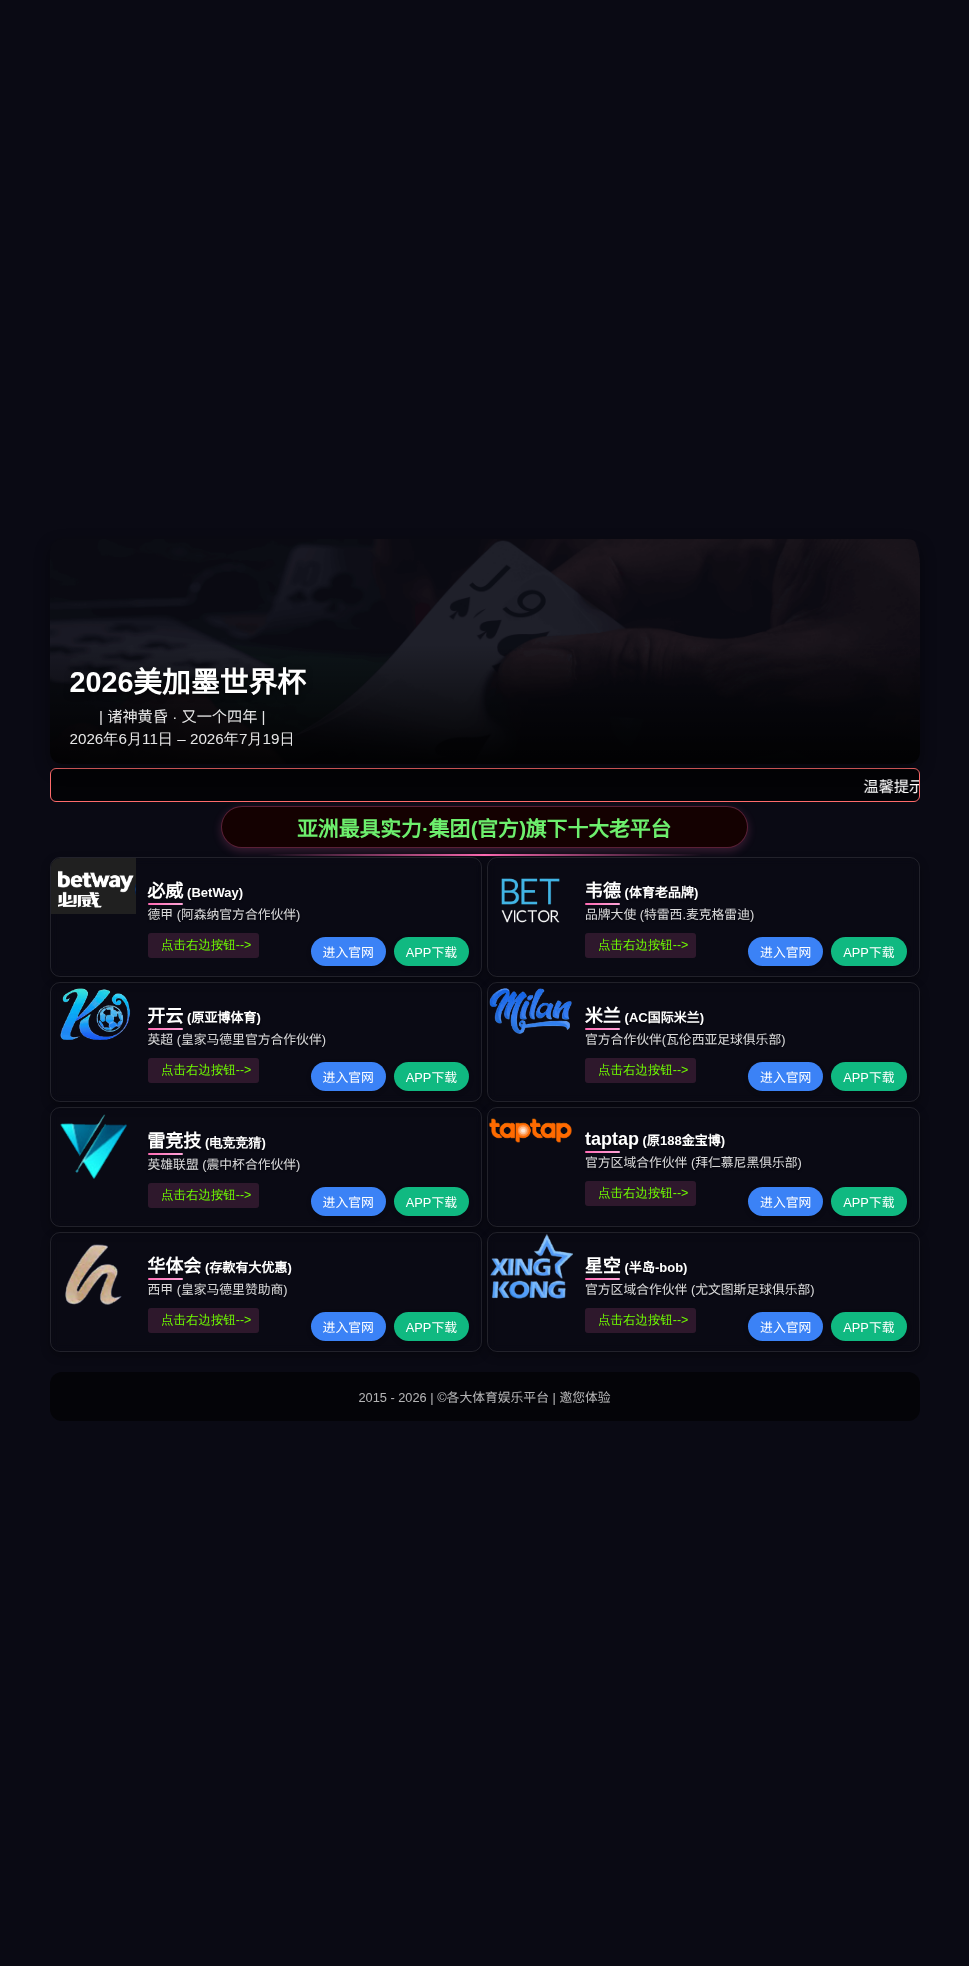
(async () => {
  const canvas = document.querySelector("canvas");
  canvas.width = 969;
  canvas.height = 1966;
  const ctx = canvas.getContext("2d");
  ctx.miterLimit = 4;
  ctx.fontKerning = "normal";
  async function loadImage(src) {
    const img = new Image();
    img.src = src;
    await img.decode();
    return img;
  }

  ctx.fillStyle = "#ffffff";
  ctx.fillRect(0, 0, 969, 1966);
  ctx.drawImage(await loadImage("img/1.png"), 0, 0, 969, 1966);
})();
